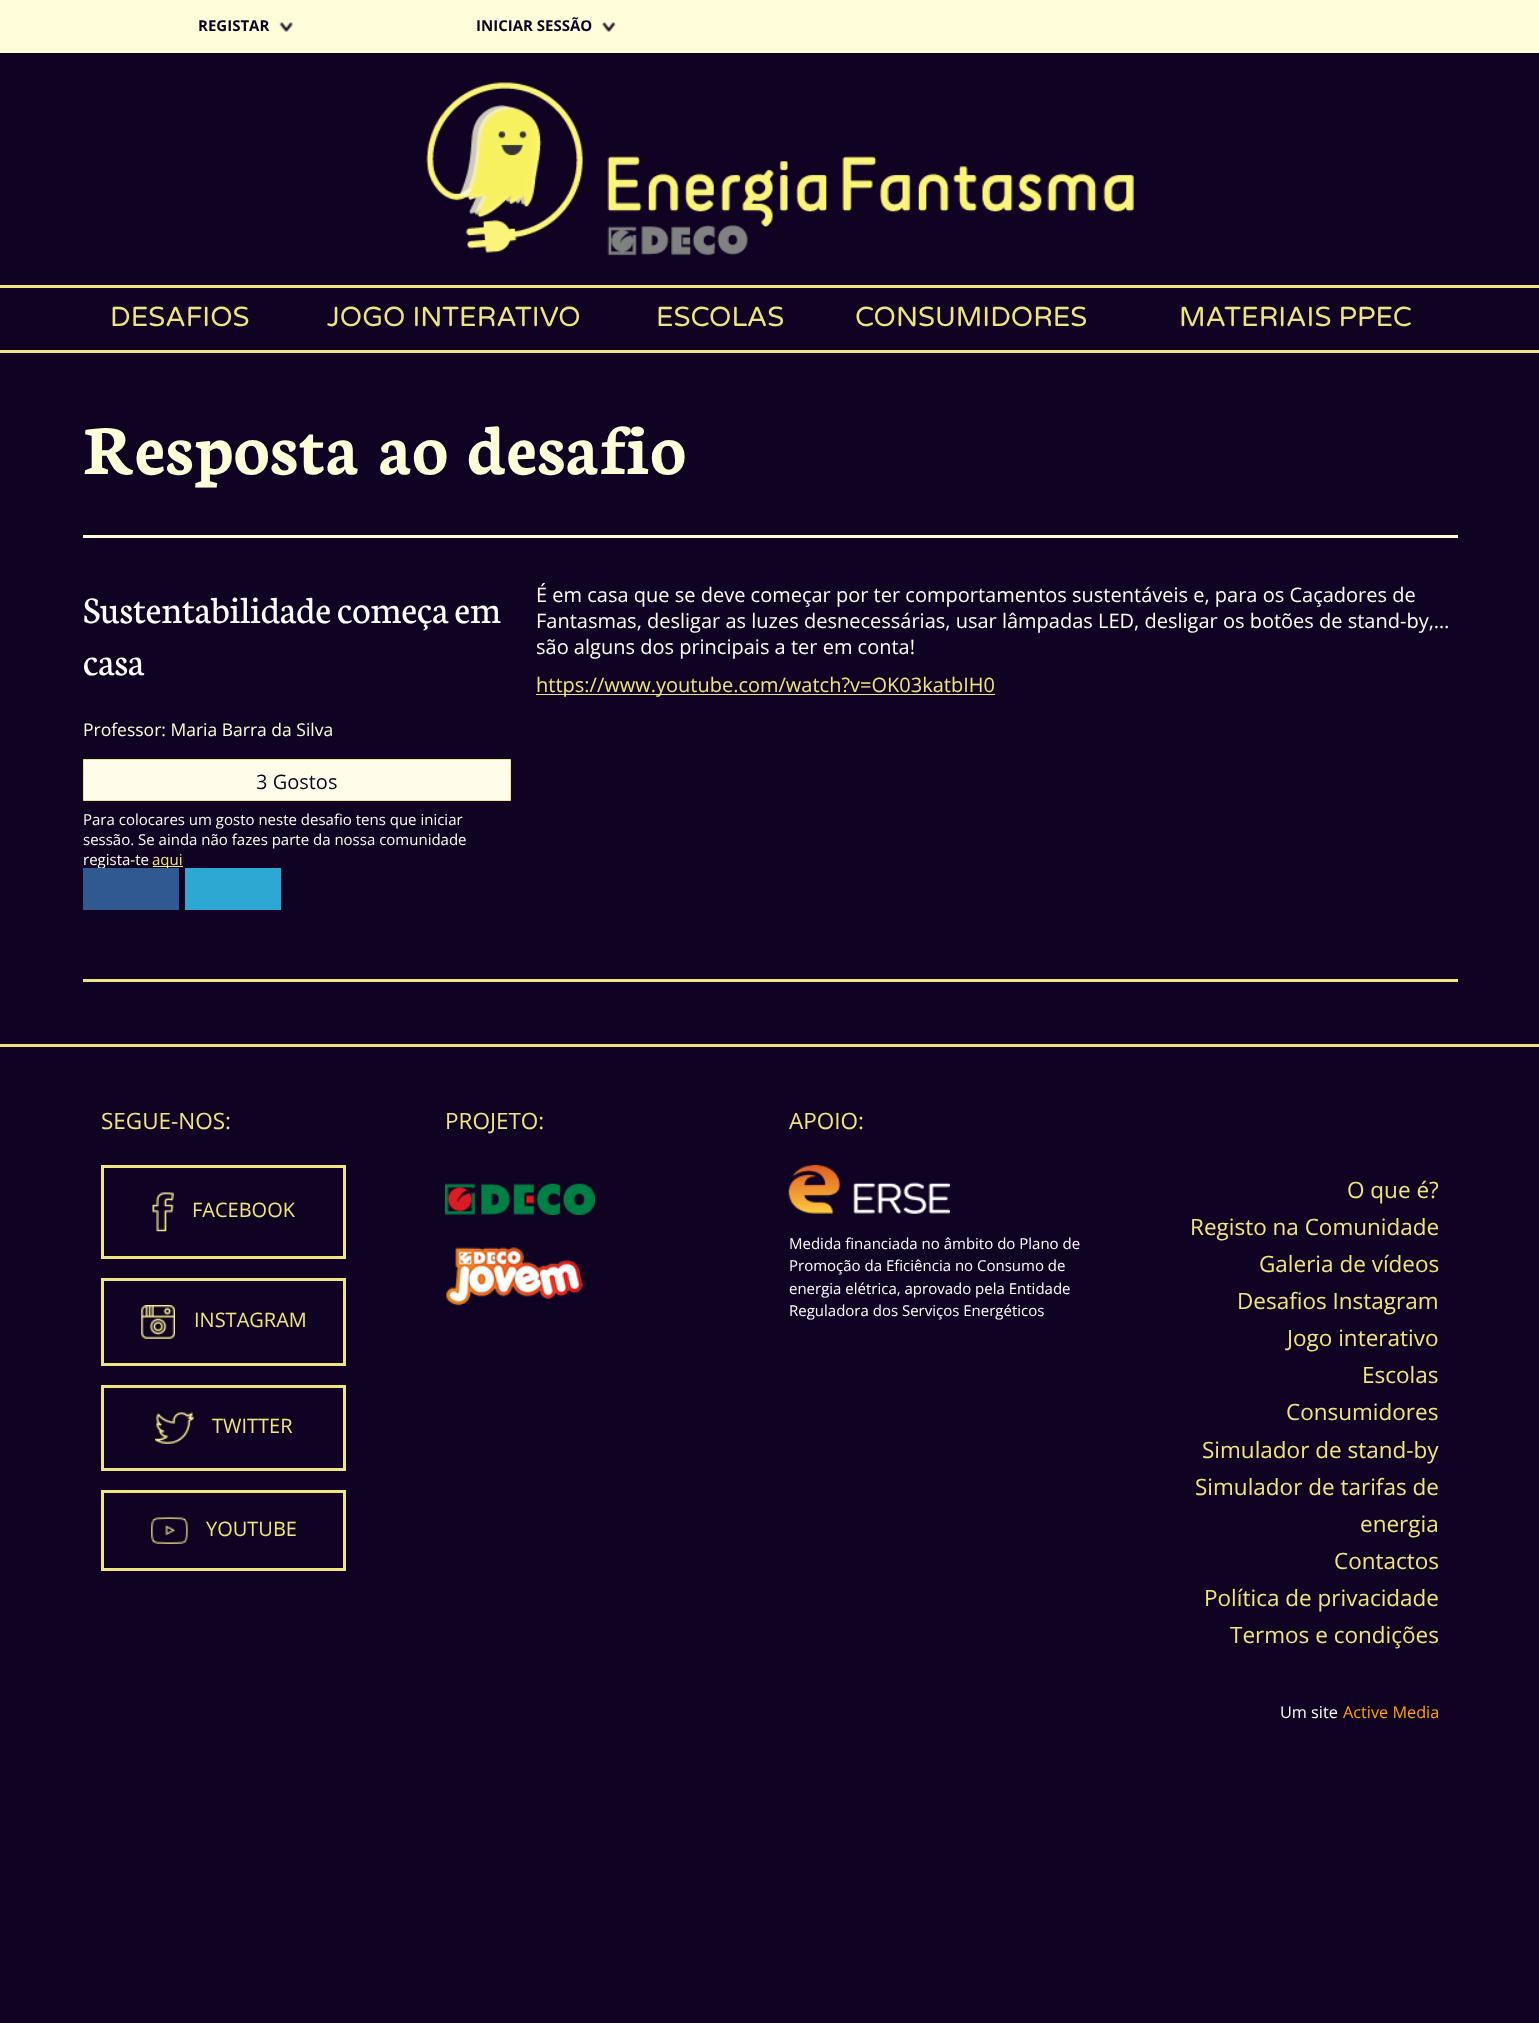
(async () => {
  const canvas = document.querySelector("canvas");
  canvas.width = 1539;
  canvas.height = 2023;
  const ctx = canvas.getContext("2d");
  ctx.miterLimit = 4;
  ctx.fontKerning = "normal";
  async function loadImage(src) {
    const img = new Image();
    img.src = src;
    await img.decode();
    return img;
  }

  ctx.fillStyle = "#100223";
  ctx.fillRect(0, 0, 1539, 2023);
  ctx.fillStyle = "#eee580";
  ctx.fillRect(0, 350, 1539, 3);
  ctx.fillStyle = "#fffcd9";
  ctx.fillRect(0, 0, 1539, 53);
  ctx.drawImage(await loadImage("img/1.png"), 279, 22, 14, 10);
  ctx.drawImage(await loadImage("img/2.png"), 601, 22, 15, 10);
  ctx.fillStyle = "#eee580";
  ctx.fillRect(0, 285, 1539, 3);
  ctx.drawImage(await loadImage("img/3.png"), 426, 82, 708, 174);
  ctx.fillStyle = "#fffcd9";
  ctx.fillRect(83, 535, 1375, 3);
  ctx.fillStyle = "#eee580";
  ctx.fillRect(83, 979, 1375, 3);
  ctx.fillStyle = "#fffcea";
  ctx.beginPath();
  ctx.rect(83.5, 759.5, 427, 41);
  ctx.fill();
  ctx.strokeStyle = "#eee580";
  ctx.stroke();
  for (const [x, y, w, h, color] of [
    [153, 866, 30, 1, "#eee580"],
    [185, 868, 96, 42, "#2ca8d2"],
    [536, 694, 459, 1, "#eee580"],
    [0, 1044, 1539, 3, "#eee580"],
  ]) {
    ctx.fillStyle = color;
    ctx.fillRect(x, y, w, h);
  }
  ctx.lineWidth = 3;
  ctx.strokeRect(102.5, 1166.5, 242, 91);
  ctx.drawImage(await loadImage("img/4.png"), 152, 1192, 22, 40);
  ctx.strokeRect(102.5, 1279.5, 242, 85);
  ctx.drawImage(await loadImage("img/5.png"), 141, 1305, 34, 34);
  ctx.strokeRect(102.5, 1386.5, 242, 83);
  ctx.drawImage(await loadImage("img/6.png"), 155, 1412, 39, 32);
  ctx.strokeRect(102.5, 1491.5, 242, 78);
  ctx.drawImage(await loadImage("img/7.png"), 151, 1517, 37, 27);
  ctx.drawImage(await loadImage("img/8.png"), 445, 1183, 150, 32);
  ctx.drawImage(await loadImage("img/9.png"), 446, 1247, 137, 59);
  ctx.drawImage(await loadImage("img/10.png"), 788, 1165, 162, 49);
  ctx.font = "bold 15px Open Sans";
  ctx.fillStyle = "#100223";
  ctx.fillText("REGISTAR", 198, 31);
  ctx.fillText("INICIAR SESSÃO", 476, 31);
  ctx.font = "27.5px Varela Round";
  ctx.fillStyle = "#eee580";
  for (const [text, x, y] of [
    ["DESAFIOS", 110, 326],
    ["JOGO INTERATIVO", 327, 326],
    ["ESCOLAS", 656, 326],
    ["CONSUMIDORES", 855, 326],
    ["MATERIAIS PPEC", 1179, 326],
  ]) {
    ctx.fillText(text, x, y);
  }
  ctx.font = "bold 75px Neuton";
  ctx.fillStyle = "#fffcd9";
  ctx.fillText("Resposta ao desafio", 83, 474);
  ctx.font = "40px Neuton";
  ctx.fillStyle = "#ffffff";
  ctx.fillText("Sustentabilidade começa em", 83, 623);
  ctx.fillText("casa", 83, 675);
  ctx.font = "17.5px Open Sans";
  ctx.fillStyle = "#fffcd9";
  ctx.fillText("Professor: Maria Barra da Silva", 83, 736);
  ctx.font = "20px Open Sans";
  ctx.fillStyle = "#100223";
  ctx.fillText("3 Gostos", 256, 789);
  ctx.font = "15px Open Sans";
  ctx.fillStyle = "#fffef3";
  for (const [text, x, y] of [
    ["Para colocares um gosto neste desafio tens que iniciar", 83, 825],
    ["sessão. Se ainda não fazes parte da nossa comunidade", 83, 845],
    ["regista-te", 83, 865],
  ]) {
    ctx.fillText(text, x, y);
  }
  ctx.fillStyle = "#eee580";
  ctx.fillText("aqui", 152, 865);
  ctx.fillStyle = "#305891";
  ctx.fillRect(83, 868, 96, 42);
  ctx.font = "20px Open Sans";
  ctx.fillStyle = "#fffef3";
  for (const [text, x, y] of [
    ["É em casa que se deve começar por ter comportamentos sustentáveis e, para os Caçadores de", 536, 602],
    ["Fantasmas, desligar as luzes desnecessárias, usar lâmpadas LED, desligar os botões de stand-by,…", 536, 628],
    ["são alguns dos principais a ter em conta!", 536, 654],
  ]) {
    ctx.fillText(text, x, y);
  }
  ctx.fillStyle = "#eee580";
  ctx.fillText("https://www.youtube.com/watch?v=OK03katbIH0", 536, 692);
  ctx.font = "22.5px Open Sans";
  ctx.fillText("SEGUE-NOS:", 101, 1129);
  ctx.font = "20px Open Sans";
  for (const [text, x, y] of [
    ["FACEBOOK", 192, 1217],
    ["INSTAGRAM", 194, 1327],
    ["TWITTER", 212, 1433],
    ["YOUTUBE", 206, 1536],
  ]) {
    ctx.fillText(text, x, y);
  }
  ctx.font = "22.5px Open Sans";
  ctx.fillText("PROJETO:", 445, 1129);
  ctx.fillText("APOIO:", 789, 1129);
  ctx.font = "15px Open Sans";
  ctx.fillStyle = "#ffffff";
  for (const [text, x, y] of [
    ["Medida financiada no âmbito do Plano de", 789, 1249],
    ["Promoção da Eficiência no Consumo de", 789, 1271],
    ["energia elétrica, aprovado pela Entidade", 789, 1294],
    ["Reguladora dos Serviços Energéticos", 789, 1316],
  ]) {
    ctx.fillText(text, x, y);
  }
  ctx.font = "22.5px Open Sans";
  ctx.fillStyle = "#eee580";
  for (const [text, x, y] of [
    ["O que é?", 1347, 1198],
    ["Registo na Comunidade", 1190, 1235],
    ["Galeria de vídeos", 1259, 1272],
    ["Desafios Instagram", 1237, 1309],
    ["Jogo interativo", 1287, 1346],
    ["Escolas", 1362, 1383],
    ["Consumidores", 1286, 1420],
    ["Simulador de stand-by", 1202, 1458],
    ["Simulador de tarifas de", 1195, 1495],
    ["energia", 1360, 1532],
    ["Contactos", 1334, 1569],
    ["Política de privacidade", 1204, 1606],
    ["Termos e condições", 1230, 1643],
  ]) {
    ctx.fillText(text, x, y);
  }
  ctx.font = "16.25px Open Sans";
  ctx.fillStyle = "#ffffff";
  ctx.fillText("Um site", 1280, 1718);
  ctx.fillStyle = "#ffa500";
  ctx.fillText("Active Media", 1343, 1718);
})();
